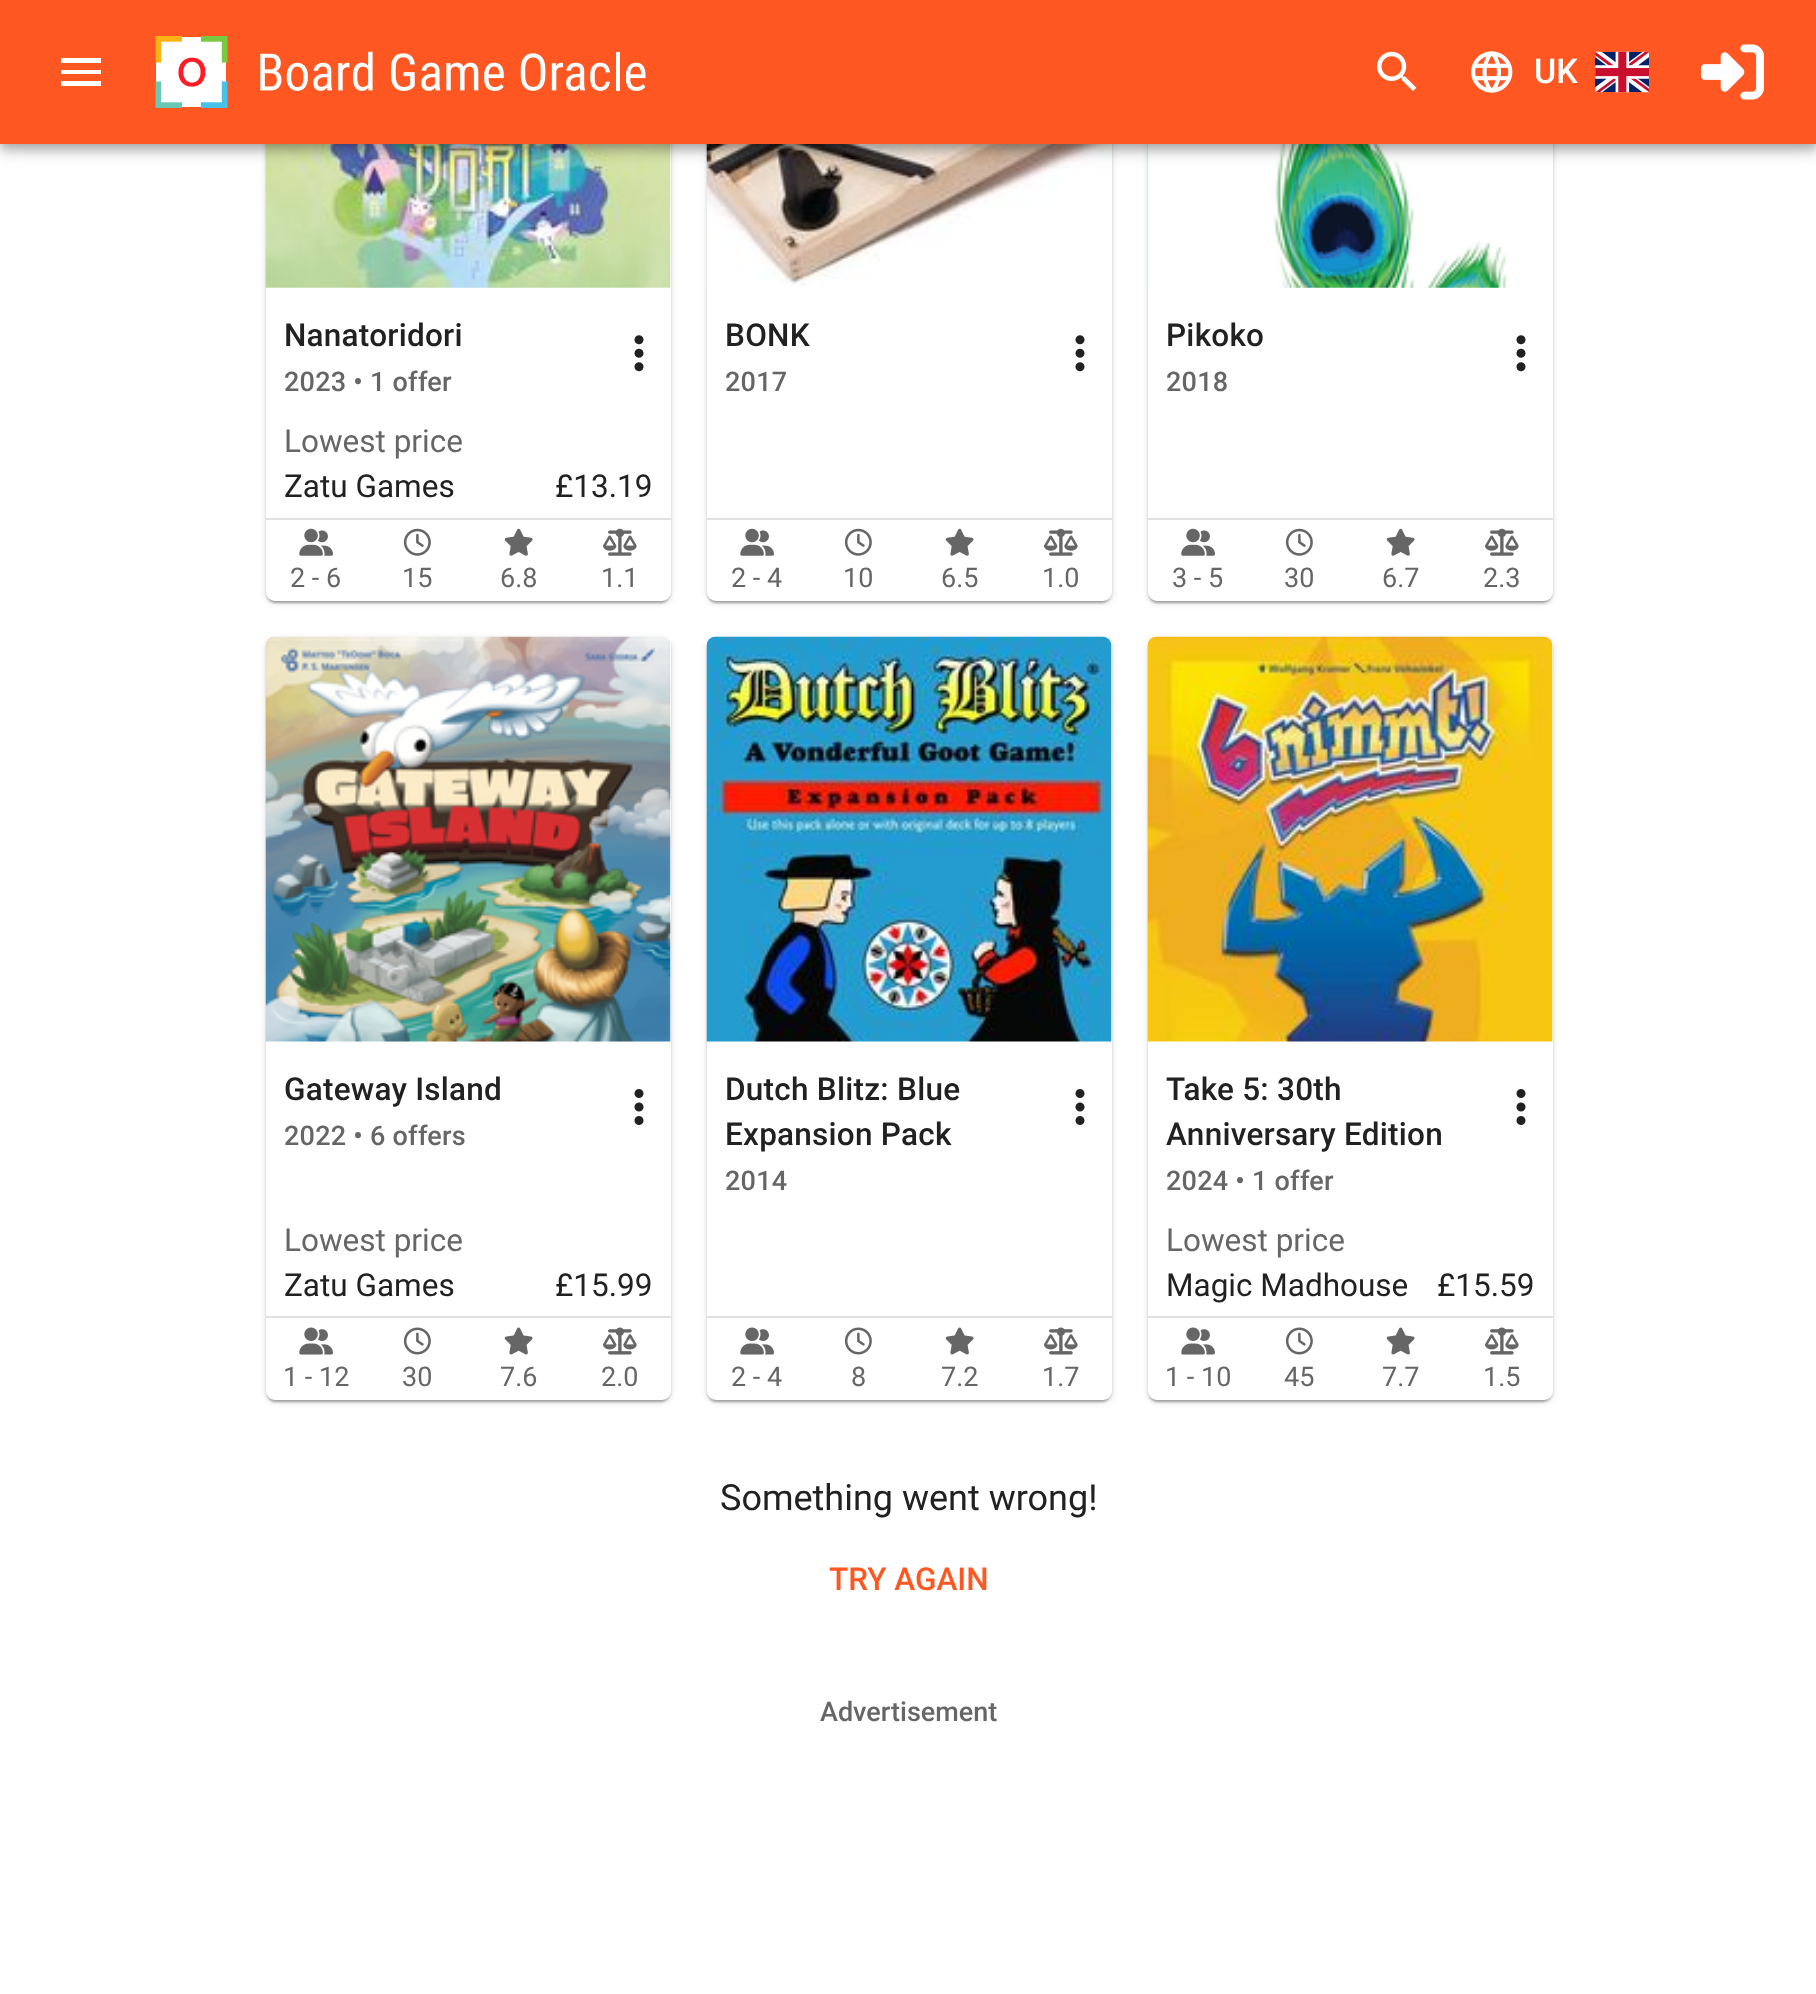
(async () => {
  const canvas = document.querySelector("canvas");
  canvas.width = 1816;
  canvas.height = 1994;
  const ctx = canvas.getContext("2d");
  ctx.miterLimit = 4;
  ctx.fontKerning = "normal";
  async function loadImage(src) {
    const img = new Image();
    img.src = src;
    await img.decode();
    return img;
  }
  let path;

  ctx.fillStyle = "#ffffff";
  ctx.fillRect(0, 0, 1816, 1994);
  ctx.fillStyle = "rgba(0, 0, 0, 0.12)";
  ctx.filter = "blur(3.5px)";
  ctx.beginPath();
  ctx.roundRect(266, -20, 405, 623, 9);
  ctx.fill();
  ctx.filter = "none";
  ctx.fillStyle = "rgba(0, 0, 0, 0.14)";
  ctx.filter = "blur(1px)";
  ctx.beginPath();
  ctx.roundRect(266, -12, 405, 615, 9);
  ctx.fill();
  ctx.filter = "none";
  ctx.fillStyle = "rgba(0, 0, 0, 0.2)";
  ctx.filter = "blur(1px)";
  ctx.beginPath();
  ctx.roundRect(268, -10, 400, 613, 7);
  ctx.fill();
  ctx.filter = "none";
  ctx.fillStyle = "#ffffff";
  ctx.beginPath();
  ctx.roundRect(266, -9, 405, 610, 9);
  ctx.fill();
  ctx.drawImage(await loadImage("img/6.png"), 265, 144, 406, 144);
  ctx.fillStyle = "rgba(0, 0, 0, 0.12)";
  ctx.filter = "blur(3.5px)";
  ctx.beginPath();
  ctx.roundRect(707, -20, 405, 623, 9);
  ctx.fill();
  ctx.filter = "none";
  ctx.fillStyle = "rgba(0, 0, 0, 0.14)";
  ctx.filter = "blur(1px)";
  ctx.beginPath();
  ctx.roundRect(707, -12, 405, 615, 9);
  ctx.fill();
  ctx.filter = "none";
  ctx.fillStyle = "rgba(0, 0, 0, 0.2)";
  ctx.filter = "blur(1px)";
  ctx.beginPath();
  ctx.roundRect(709, -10, 400, 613, 7);
  ctx.fill();
  ctx.filter = "none";
  ctx.fillStyle = "#ffffff";
  ctx.beginPath();
  ctx.roundRect(707, -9, 405, 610, 9);
  ctx.fill();
  ctx.drawImage(await loadImage("img/12.png"), 706, 144, 406, 143);
  ctx.fillStyle = "rgba(0, 0, 0, 0.12)";
  ctx.filter = "blur(3.5px)";
  ctx.beginPath();
  ctx.roundRect(1148, -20, 405, 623, 9);
  ctx.fill();
  ctx.filter = "none";
  ctx.fillStyle = "rgba(0, 0, 0, 0.14)";
  ctx.filter = "blur(1px)";
  ctx.beginPath();
  ctx.roundRect(1148, -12, 405, 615, 9);
  ctx.fill();
  ctx.filter = "none";
  ctx.fillStyle = "rgba(0, 0, 0, 0.2)";
  ctx.filter = "blur(1px)";
  ctx.beginPath();
  ctx.roundRect(1150, -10, 400, 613, 7);
  ctx.fill();
  ctx.filter = "none";
  ctx.fillStyle = "#ffffff";
  ctx.beginPath();
  ctx.roundRect(1148, -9, 405, 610, 9);
  ctx.fill();
  ctx.drawImage(await loadImage("img/13.png"), 1148, 144, 363, 144);
  ctx.fillStyle = "rgba(0, 0, 0, 0.12)";
  ctx.filter = "blur(11px)";
  ctx.beginPath();
  ctx.rect(0, 2, 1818, 144);
  ctx.fill();
  ctx.filter = "none";
  ctx.fillStyle = "rgba(0, 0, 0, 0.14)";
  ctx.filter = "blur(5.5px)";
  ctx.beginPath();
  ctx.rect(0, 9, 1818, 144);
  ctx.fill();
  ctx.filter = "none";
  ctx.fillStyle = "rgba(0, 0, 0, 0.2)";
  ctx.filter = "blur(4.5px)";
  ctx.beginPath();
  ctx.rect(2, 7, 1814, 139);
  ctx.fill();
  ctx.filter = "none";
  ctx.fillStyle = "#ff5722";
  ctx.fillRect(0, 0, 1816, 144);
  ctx.fillStyle = "#ffffff";
  path = new Path2D("M61 86H101V81H61ZM61 74H101V70H61ZM61 58V63H101V58Z");
  ctx.fill(path);
  ctx.drawImage(await loadImage("img/1.png"), 155, 36, 491, 72);
  ctx.drawImage(await loadImage("img/2.png"), 1377, 51, 40, 40);
  ctx.drawImage(await loadImage("img/3.png"), 1471, 51, 42, 42);
  ctx.drawImage(await loadImage("img/4.png"), 1595, 51, 54, 42);
  ctx.drawImage(await loadImage("img/5.png"), 1701, 44, 63, 56);
  ctx.fillStyle = "#e0e0e0";
  ctx.fillRect(266, 518, 405, 2);
  ctx.drawImage(await loadImage("img/7.png"), 299, 528, 34, 28);
  ctx.drawImage(await loadImage("img/8.png"), 403, 528, 28, 28);
  ctx.drawImage(await loadImage("img/9.png"), 504, 528, 29, 28);
  ctx.drawImage(await loadImage("img/10.png"), 603, 528, 34, 28);
  ctx.drawImage(await loadImage("img/11.png"), 634, 335, 10, 37);
  ctx.fillRect(707, 518, 405, 2);
  ctx.drawImage(await loadImage("img/7.png"), 740, 528, 34, 28);
  ctx.drawImage(await loadImage("img/8.png"), 844, 528, 28, 28);
  ctx.drawImage(await loadImage("img/9.png"), 945, 528, 29, 28);
  ctx.drawImage(await loadImage("img/10.png"), 1044, 528, 34, 28);
  ctx.drawImage(await loadImage("img/11.png"), 1075, 335, 10, 37);
  ctx.fillRect(1148, 518, 405, 2);
  ctx.drawImage(await loadImage("img/7.png"), 1181, 528, 34, 28);
  ctx.drawImage(await loadImage("img/8.png"), 1285, 528, 28, 28);
  ctx.drawImage(await loadImage("img/9.png"), 1386, 528, 29, 28);
  ctx.drawImage(await loadImage("img/10.png"), 1485, 528, 34, 28);
  ctx.drawImage(await loadImage("img/11.png"), 1516, 335, 10, 37);
  ctx.fillStyle = "rgba(0, 0, 0, 0.12)";
  ctx.filter = "blur(3.5px)";
  ctx.beginPath();
  ctx.roundRect(266, 639, 405, 763, 9);
  ctx.fill();
  ctx.filter = "none";
  ctx.fillStyle = "rgba(0, 0, 0, 0.14)";
  ctx.filter = "blur(1px)";
  ctx.beginPath();
  ctx.roundRect(266, 639, 405, 763, 9);
  ctx.fill();
  ctx.filter = "none";
  ctx.fillStyle = "rgba(0, 0, 0, 0.2)";
  ctx.filter = "blur(1px)";
  ctx.beginPath();
  ctx.roundRect(268, 644, 400, 758, 7);
  ctx.fill();
  ctx.filter = "none";
  ctx.fillStyle = "#ffffff";
  ctx.beginPath();
  ctx.roundRect(266, 637, 405, 763, 9);
  ctx.fill();
  ctx.drawImage(await loadImage("img/14.png"), 265, 636, 406, 406);
  ctx.fillStyle = "#e0e0e0";
  ctx.fillRect(266, 1316, 405, 2);
  ctx.drawImage(await loadImage("img/15.png"), 299, 1327, 34, 28);
  ctx.drawImage(await loadImage("img/16.png"), 403, 1327, 28, 28);
  ctx.drawImage(await loadImage("img/17.png"), 504, 1327, 29, 28);
  ctx.drawImage(await loadImage("img/18.png"), 603, 1327, 34, 28);
  ctx.drawImage(await loadImage("img/19.png"), 634, 1089, 10, 36);
  ctx.fillStyle = "rgba(0, 0, 0, 0.12)";
  ctx.filter = "blur(3.5px)";
  ctx.beginPath();
  ctx.roundRect(707, 639, 405, 763, 9);
  ctx.fill();
  ctx.filter = "none";
  ctx.fillStyle = "rgba(0, 0, 0, 0.14)";
  ctx.filter = "blur(1px)";
  ctx.beginPath();
  ctx.roundRect(707, 639, 405, 763, 9);
  ctx.fill();
  ctx.filter = "none";
  ctx.fillStyle = "rgba(0, 0, 0, 0.2)";
  ctx.filter = "blur(1px)";
  ctx.beginPath();
  ctx.roundRect(709, 644, 400, 758, 7);
  ctx.fill();
  ctx.filter = "none";
  ctx.fillStyle = "#ffffff";
  ctx.beginPath();
  ctx.roundRect(707, 637, 405, 763, 9);
  ctx.fill();
  ctx.drawImage(await loadImage("img/20.png"), 706, 636, 406, 406);
  ctx.fillStyle = "#e0e0e0";
  ctx.fillRect(707, 1316, 405, 2);
  ctx.drawImage(await loadImage("img/15.png"), 740, 1327, 34, 28);
  ctx.drawImage(await loadImage("img/16.png"), 844, 1327, 28, 28);
  ctx.drawImage(await loadImage("img/17.png"), 945, 1327, 29, 28);
  ctx.drawImage(await loadImage("img/18.png"), 1044, 1327, 34, 28);
  ctx.drawImage(await loadImage("img/19.png"), 1075, 1089, 10, 36);
  ctx.fillStyle = "rgba(0, 0, 0, 0.12)";
  ctx.filter = "blur(3.5px)";
  ctx.beginPath();
  ctx.roundRect(1148, 639, 405, 763, 9);
  ctx.fill();
  ctx.filter = "none";
  ctx.fillStyle = "rgba(0, 0, 0, 0.14)";
  ctx.filter = "blur(1px)";
  ctx.beginPath();
  ctx.roundRect(1148, 639, 405, 763, 9);
  ctx.fill();
  ctx.filter = "none";
  ctx.fillStyle = "rgba(0, 0, 0, 0.2)";
  ctx.filter = "blur(1px)";
  ctx.beginPath();
  ctx.roundRect(1150, 644, 400, 758, 7);
  ctx.fill();
  ctx.filter = "none";
  ctx.fillStyle = "#ffffff";
  ctx.beginPath();
  ctx.roundRect(1148, 637, 405, 763, 9);
  ctx.fill();
  ctx.drawImage(await loadImage("img/21.png"), 1147, 636, 406, 406);
  ctx.fillStyle = "#e0e0e0";
  ctx.fillRect(1148, 1316, 405, 2);
  ctx.drawImage(await loadImage("img/15.png"), 1181, 1327, 34, 28);
  ctx.drawImage(await loadImage("img/16.png"), 1285, 1327, 28, 28);
  ctx.drawImage(await loadImage("img/17.png"), 1386, 1327, 29, 28);
  ctx.drawImage(await loadImage("img/18.png"), 1485, 1327, 34, 28);
  ctx.drawImage(await loadImage("img/19.png"), 1516, 1089, 10, 36);
  ctx.font = "500 34px Roboto";
  ctx.fillStyle = "#ffffff";
  ctx.fillText("UK", 1534, 83);
  ctx.letterSpacing = "0.25px";
  ctx.font = "500 31.5px Roboto";
  ctx.fillStyle = "#212121";
  ctx.fillText("Nanatoridori", 284, 346);
  ctx.font = "500 27px Roboto";
  ctx.fillStyle = "#666666";
  ctx.fillText("2023 • 1 offer", 284, 391);
  ctx.letterSpacing = "0px";
  ctx.font = "31.5px Roboto";
  ctx.fillText("Lowest price", 284, 452);
  ctx.fillStyle = "#212121";
  ctx.fillText("Zatu Games", 284, 497);
  ctx.fillText("£13.19", 555, 497);
  ctx.font = "27px Roboto";
  ctx.fillStyle = "#666666";
  for (const [text, x, y] of [
    ["2 - 6", 290, 587],
    ["15", 402, 587],
    ["6.8", 500, 587],
    ["1.1", 601, 587],
  ]) {
    ctx.fillText(text, x, y);
  }
  ctx.letterSpacing = "0.25px";
  ctx.font = "500 31.5px Roboto";
  ctx.fillStyle = "#212121";
  ctx.fillText("BONK", 725, 346);
  ctx.font = "500 27px Roboto";
  ctx.fillStyle = "#666666";
  ctx.fillText("2017", 725, 391);
  ctx.letterSpacing = "0px";
  ctx.font = "27px Roboto";
  for (const [text, x, y] of [
    ["2 - 4", 731, 587],
    ["10", 843, 587],
    ["6.5", 941, 587],
    ["1.0", 1042, 587],
  ]) {
    ctx.fillText(text, x, y);
  }
  ctx.letterSpacing = "0.25px";
  ctx.font = "500 31.5px Roboto";
  ctx.fillStyle = "#212121";
  ctx.fillText("Pikoko", 1166, 346);
  ctx.font = "500 27px Roboto";
  ctx.fillStyle = "#666666";
  ctx.fillText("2018", 1166, 391);
  ctx.letterSpacing = "0px";
  ctx.font = "27px Roboto";
  for (const [text, x, y] of [
    ["3 - 5", 1172, 587],
    ["30", 1284, 587],
    ["6.7", 1382, 587],
    ["2.3", 1483, 587],
  ]) {
    ctx.fillText(text, x, y);
  }
  ctx.letterSpacing = "0.25px";
  ctx.font = "500 31.5px Roboto";
  ctx.fillStyle = "#212121";
  ctx.fillText("Gateway Island", 284, 1100);
  ctx.font = "500 27px Roboto";
  ctx.fillStyle = "#666666";
  ctx.fillText("2022 • 6 offers", 284, 1145);
  ctx.letterSpacing = "0px";
  ctx.font = "31.5px Roboto";
  ctx.fillText("Lowest price", 284, 1251);
  ctx.fillStyle = "#212121";
  ctx.fillText("Zatu Games", 284, 1296);
  ctx.fillText("£15.99", 555, 1296);
  ctx.font = "27px Roboto";
  ctx.fillStyle = "#666666";
  for (const [text, x, y] of [
    ["1 - 12", 283, 1386],
    ["30", 402, 1386],
    ["7.6", 500, 1386],
    ["2.0", 601, 1386],
  ]) {
    ctx.fillText(text, x, y);
  }
  ctx.letterSpacing = "0.25px";
  ctx.font = "500 31.5px Roboto";
  ctx.fillStyle = "#212121";
  ctx.fillText("Dutch Blitz: Blue", 725, 1100);
  ctx.fillText("Expansion Pack", 725, 1145);
  ctx.font = "500 27px Roboto";
  ctx.fillStyle = "#666666";
  ctx.fillText("2014", 725, 1190);
  ctx.letterSpacing = "0px";
  ctx.font = "27px Roboto";
  for (const [text, x, y] of [
    ["2 - 4", 731, 1386],
    ["8", 851, 1386],
    ["7.2", 941, 1386],
    ["1.7", 1042, 1386],
  ]) {
    ctx.fillText(text, x, y);
  }
  ctx.letterSpacing = "0.25px";
  ctx.font = "500 31.5px Roboto";
  ctx.fillStyle = "#212121";
  ctx.fillText("Take 5: 30th", 1166, 1100);
  ctx.fillText("Anniversary Edition", 1166, 1145);
  ctx.font = "500 27px Roboto";
  ctx.fillStyle = "#666666";
  ctx.fillText("2024 • 1 offer", 1166, 1190);
  ctx.letterSpacing = "0px";
  ctx.font = "31.5px Roboto";
  ctx.fillText("Lowest price", 1166, 1251);
  ctx.fillStyle = "#212121";
  ctx.fillText("Magic Madhouse", 1166, 1296);
  ctx.fillText("£15.59", 1437, 1296);
  ctx.font = "27px Roboto";
  ctx.fillStyle = "#666666";
  for (const [text, x, y] of [
    ["1 - 10", 1165, 1386],
    ["45", 1284, 1386],
    ["7.7", 1382, 1386],
    ["1.5", 1483, 1386],
  ]) {
    ctx.fillText(text, x, y);
  }
  ctx.font = "36px Roboto";
  ctx.fillStyle = "#212121";
  ctx.fillText("Something went wrong!", 720, 1510);
  ctx.font = "500 31.5px Roboto";
  ctx.fillStyle = "#ff5722";
  ctx.fillText("TRY AGAIN", 829, 1590);
  ctx.font = "500 27px Roboto";
  ctx.fillStyle = "#666666";
  ctx.fillText("Advertisement", 820, 1721);
})();
